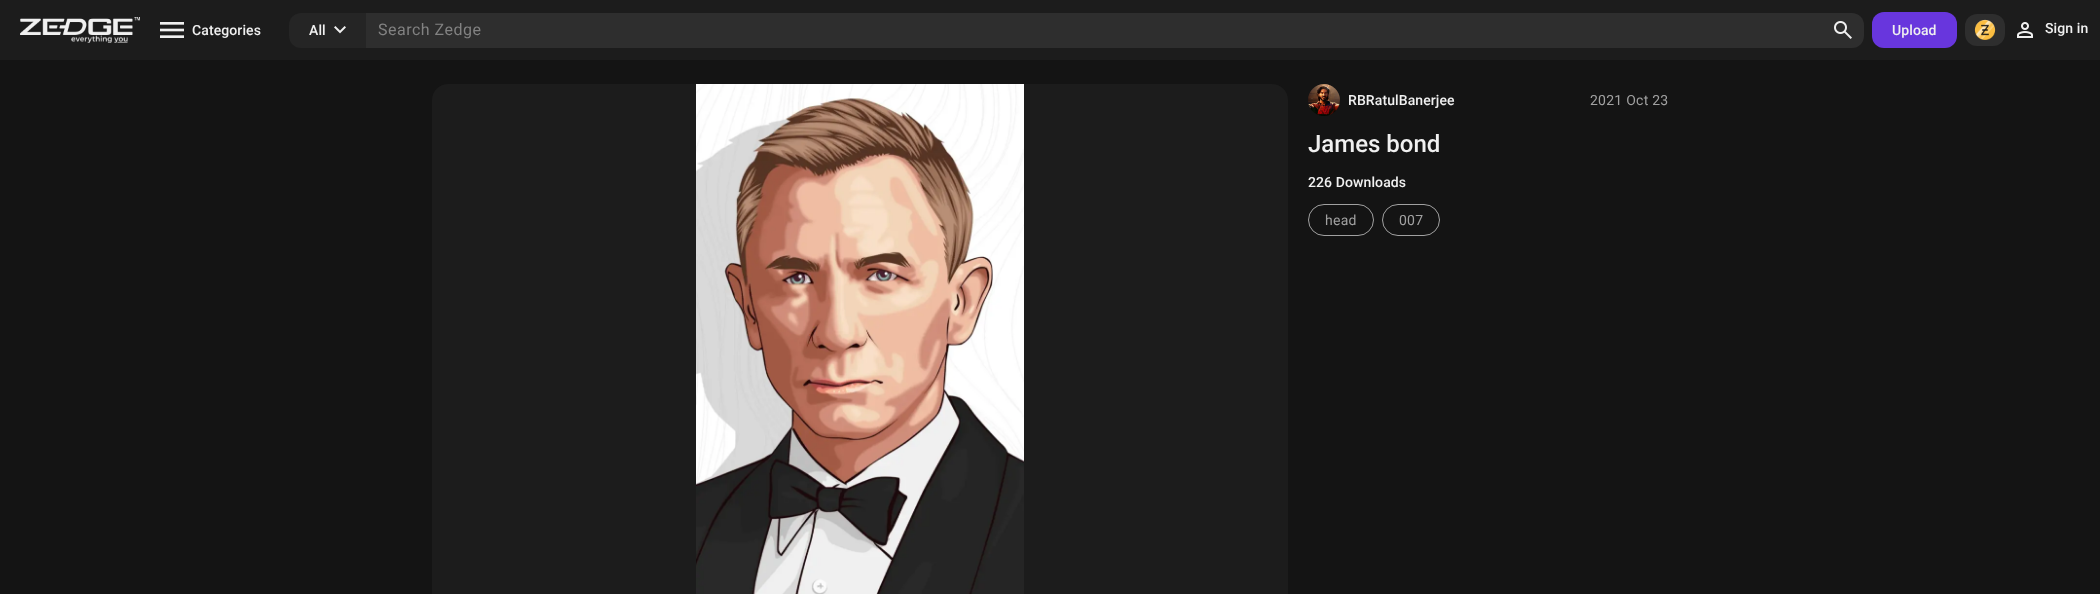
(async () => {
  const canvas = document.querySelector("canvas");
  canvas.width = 2100;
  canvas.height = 594;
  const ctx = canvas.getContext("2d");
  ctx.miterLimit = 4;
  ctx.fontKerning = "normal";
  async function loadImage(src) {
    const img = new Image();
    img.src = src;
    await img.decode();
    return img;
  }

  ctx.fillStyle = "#141414";
  ctx.fillRect(0, 0, 2100, 594);
  ctx.fillStyle = "#1c1c1c";
  ctx.fillRect(0, 0, 2100, 60);
  ctx.drawImage(await loadImage("img/1.png"), 20, 17, 120, 18);
  ctx.drawImage(await loadImage("img/2.png"), 71, 35, 57, 8);
  ctx.drawImage(await loadImage("img/3.png"), 160, 22, 24, 16);
  ctx.fillStyle = "#252525";
  ctx.beginPath();
  ctx.roundRect(289, 13, 77, 35, [12, 0, 0, 12]);
  ctx.fill();
  ctx.drawImage(await loadImage("img/4.png"), 334, 26, 12, 8);
  ctx.fillStyle = "#2e2e2e";
  ctx.beginPath();
  ctx.roundRect(366, 13, 1498, 35, [0, 12, 12, 0]);
  ctx.fill();
  ctx.drawImage(await loadImage("img/5.png"), 1834, 21, 18, 18);
  ctx.fillStyle = "#6836dd";
  ctx.beginPath();
  ctx.roundRect(1872, 12, 85, 36, 12);
  ctx.fill();
  ctx.fillStyle = "#2e2e2e";
  ctx.beginPath();
  ctx.roundRect(1965, 14, 40, 32, 12);
  ctx.fill();
  ctx.drawImage(await loadImage("img/6.png"), 1974, 19, 22, 21);
  ctx.drawImage(await loadImage("img/7.png"), 2017, 22, 16, 16);
  ctx.fillStyle = "#1c1c1c";
  ctx.beginPath();
  ctx.roundRect(432, 84, 856, 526, 16);
  ctx.fill();
  ctx.drawImage(await loadImage("img/8.png"), 696, 84, 328, 510);
  ctx.drawImage(await loadImage("img/9.png"), 1308, 84, 32, 32);
  ctx.beginPath();
  ctx.roundRect(1308.5, 204.5, 65, 31, 15.5);
  ctx.strokeStyle = "#a1a1a1";
  ctx.stroke();
  ctx.beginPath();
  ctx.roundRect(1382.5, 204.5, 57, 31, 15.5);
  ctx.stroke();
  ctx.letterSpacing = "0.1px";
  ctx.font = "500 14px Roboto";
  ctx.fillStyle = "#f0f0f0";
  ctx.fillText("Categories", 192, 35);
  ctx.fillText("All", 309, 35);
  ctx.letterSpacing = "0.5px";
  ctx.font = "16px Roboto";
  ctx.fillStyle = "#828282";
  ctx.fillText("Search Zedge", 378, 35);
  ctx.letterSpacing = "0.1px";
  ctx.font = "500 14px Roboto";
  ctx.fillStyle = "#f0f0f0";
  for (const [text, x, y] of [
    ["Upload", 1892, 35],
    ["Sign in", 2045, 33],
    ["RBRatulBanerjee", 1348, 105],
  ]) {
    ctx.fillText(text, x, y);
  }
  ctx.letterSpacing = "0.25px";
  ctx.font = "14px Roboto";
  ctx.fillStyle = "#a1a1a1";
  ctx.fillText("2021 Oct 23", 1590, 105);
  ctx.letterSpacing = "0px";
  ctx.font = "500 24px Roboto";
  ctx.fillStyle = "#f0f0f0";
  ctx.fillText("James bond", 1308, 152);
  ctx.letterSpacing = "0.1px";
  ctx.font = "500 14px Roboto";
  ctx.fillText("226 Downloads", 1308, 187);
  ctx.letterSpacing = "0.25px";
  ctx.font = "14px Roboto";
  ctx.fillStyle = "#a1a1a1";
  ctx.fillText("head", 1325, 225);
  ctx.fillText("007", 1399, 225);
})();
